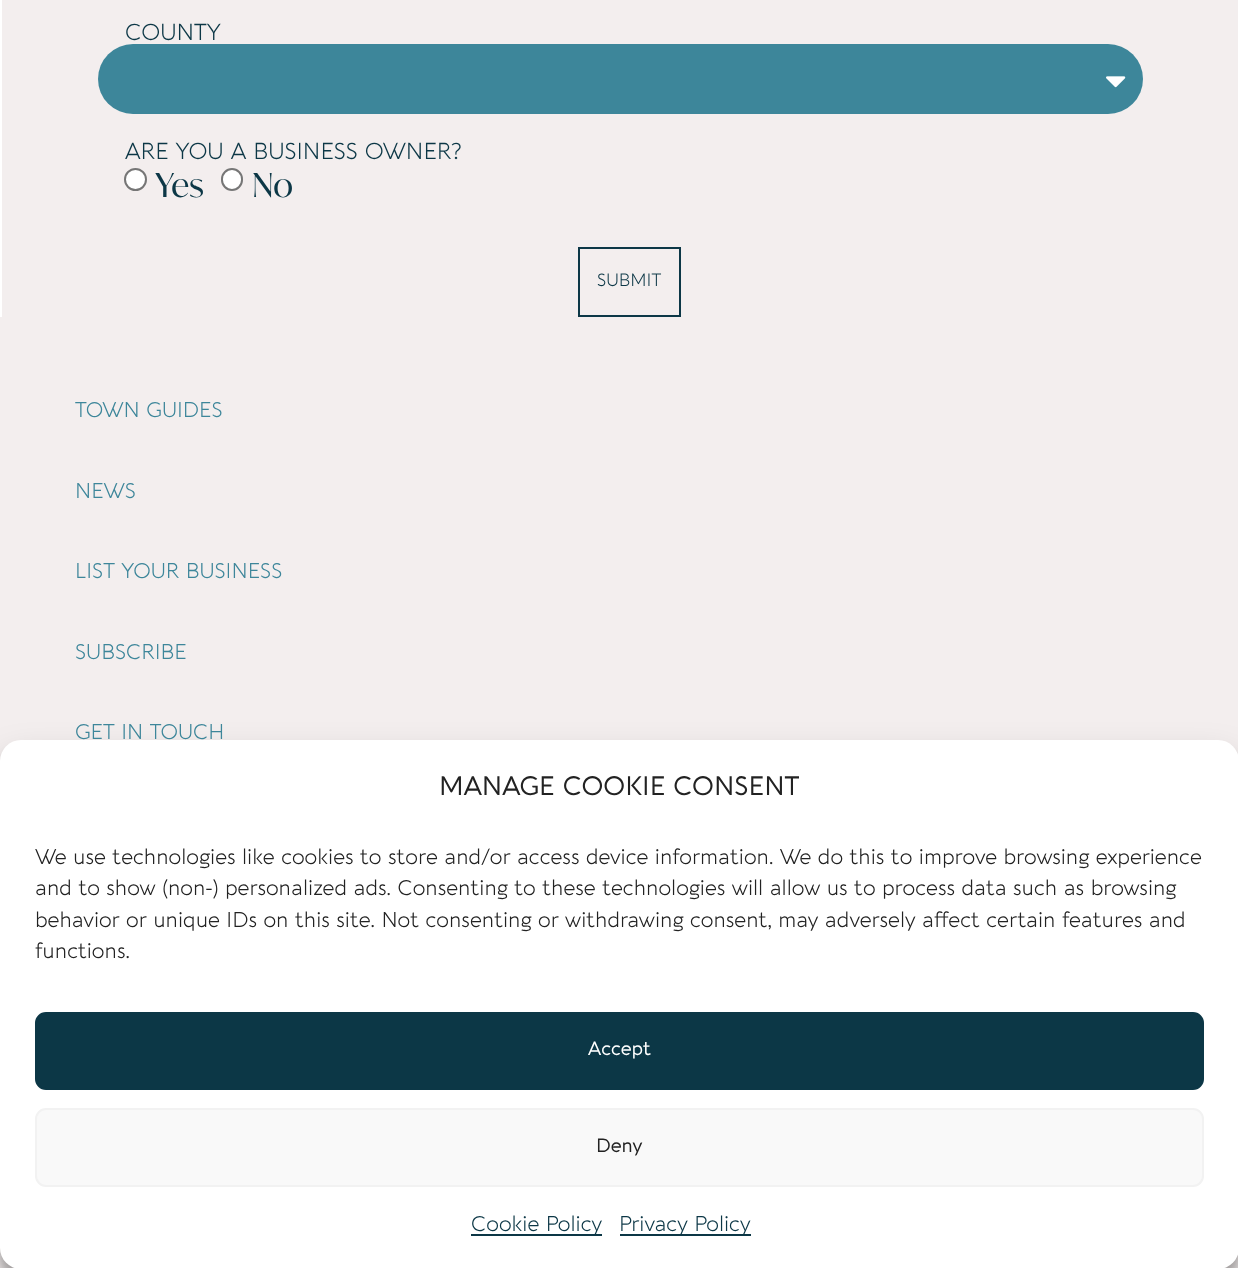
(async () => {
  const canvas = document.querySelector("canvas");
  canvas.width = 1238;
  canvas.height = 1268;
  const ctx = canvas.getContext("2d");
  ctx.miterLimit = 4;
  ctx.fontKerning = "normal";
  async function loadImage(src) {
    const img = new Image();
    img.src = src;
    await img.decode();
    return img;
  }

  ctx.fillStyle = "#f3eeee";
  ctx.fillRect(0, 0, 1238, 1268);
  ctx.fillStyle = "#ffffff";
  ctx.fillRect(0, 0, 2, 317);
  ctx.fillStyle = "#3d869a";
  ctx.beginPath();
  ctx.roundRect(98, 44, 1045, 70, 35);
  ctx.fill();
  ctx.drawImage(await loadImage("img/1.png"), 1106, 76, 20, 12);
  ctx.fillStyle = "#ffffff";
  ctx.beginPath();
  ctx.arc(135.5, 179.5, 10.5, 0, Math.PI * 2);
  ctx.fill();
  ctx.strokeStyle = "#767676";
  ctx.lineWidth = 2;
  ctx.stroke();
  ctx.beginPath();
  ctx.roundRect(222, 169, 20, 21, 10);
  ctx.fill();
  ctx.stroke();
  ctx.strokeStyle = "#0c3746";
  ctx.strokeRect(579, 248, 101, 68);
  ctx.fillStyle = "rgba(0, 0, 0, 0.23)";
  ctx.filter = "blur(5px)";
  ctx.beginPath();
  ctx.roundRect(0, 751, 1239, 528, 21);
  ctx.fill();
  ctx.filter = "none";
  ctx.fillStyle = "rgba(0, 0, 0, 0.19)";
  ctx.filter = "blur(17.5px)";
  ctx.beginPath();
  ctx.roundRect(0, 758, 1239, 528, 21);
  ctx.fill();
  ctx.filter = "none";
  ctx.fillStyle = "#ffffff";
  ctx.beginPath();
  ctx.roundRect(0, 740, 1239, 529, 21);
  ctx.fill();
  ctx.fillStyle = "#0c3746";
  ctx.beginPath();
  ctx.roundRect(36, 1013, 1167, 76, 10);
  ctx.fill();
  ctx.stroke();
  ctx.fillStyle = "#f9f9f9";
  ctx.beginPath();
  ctx.roundRect(36, 1109, 1167, 77, 10);
  ctx.fill();
  ctx.strokeStyle = "#f2f2f2";
  ctx.stroke();
  ctx.fillStyle = "#0c3746";
  ctx.fillRect(471, 1234, 131, 2);
  ctx.fillRect(620, 1234, 131, 2);
  ctx.font = "300 22.75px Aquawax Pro";
  ctx.fillText("COUNTY", 125, 40);
  ctx.fillText("ARE YOU A BUSINESS OWNER?", 125, 159);
  ctx.font = "33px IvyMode";
  ctx.fillText("Yes", 155, 197);
  ctx.fillText("No", 252, 197);
  ctx.font = "300 17.5px Aquawax Pro";
  ctx.fillText("SUBMIT", 597, 286);
  ctx.font = "300 21px Aquawax Pro";
  ctx.fillStyle = "#3d869a";
  for (const [text, x, y] of [
    ["TOWN GUIDES", 75, 417],
    ["NEWS", 75, 498],
    ["LIST YOUR BUSINESS", 75, 578],
    ["SUBSCRIBE", 75, 659],
    ["GET IN TOUCH", 75, 739],
  ]) {
    ctx.fillText(text, x, y);
  }
  ctx.font = "26.25px Aquawax Pro";
  ctx.fillStyle = "#222222";
  ctx.fillText("MANAGE COOKIE CONSENT", 439, 795);
  ctx.font = "300 21px Aquawax Pro";
  for (const [text, x, y] of [
    ["We use technologies like cookies to store and/or access device information. We do this to improve browsing experience", 35, 864],
    ["and to show (non-) personalized ads. Consenting to these technologies will allow us to process data such as browsing", 35, 895],
    ["behavior or unique IDs on this site. Not consenting or withdrawing consent, may adversely affect certain features and", 35, 927],
    ["functions.", 35, 958],
  ]) {
    ctx.fillText(text, x, y);
  }
  ctx.font = "19px Aquawax Pro";
  ctx.fillStyle = "#ffffff";
  ctx.fillText("Accept", 588, 1055);
  ctx.fillStyle = "#222222";
  ctx.fillText("Deny", 596, 1152);
  ctx.font = "300 21px Aquawax Pro";
  ctx.fillStyle = "#0c3746";
  ctx.fillText("Cookie Policy", 471, 1231);
  ctx.fillText("Privacy Policy", 619, 1231);
})();
